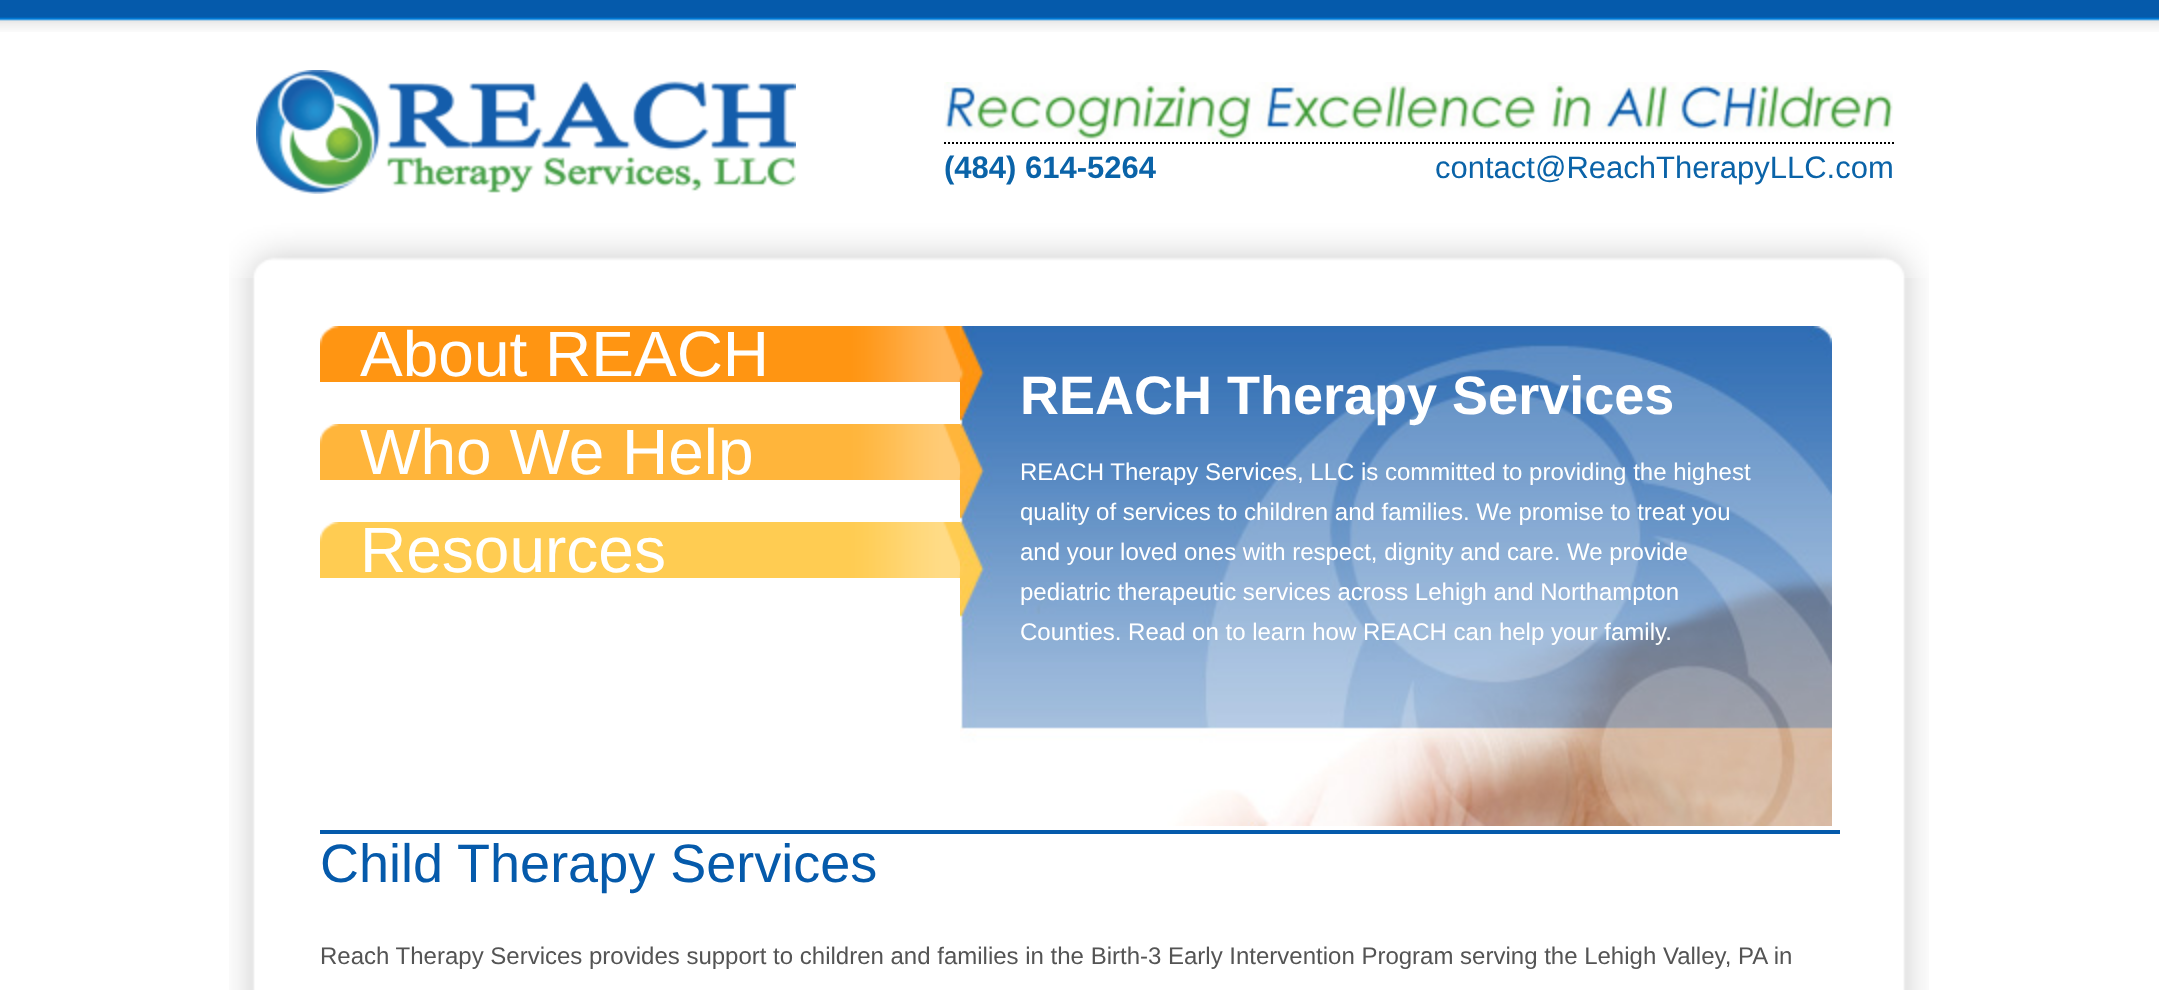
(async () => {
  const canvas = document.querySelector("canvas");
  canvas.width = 2159;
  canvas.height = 990;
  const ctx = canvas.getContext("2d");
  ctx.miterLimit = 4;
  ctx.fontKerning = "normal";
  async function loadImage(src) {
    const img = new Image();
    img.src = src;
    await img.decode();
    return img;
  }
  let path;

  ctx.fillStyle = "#ffffff";
  ctx.fillRect(0, 0, 2159, 990);
  ctx.drawImage(await loadImage("img/1.png"), 0, 0, 2159, 32);
  ctx.drawImage(await loadImage("img/2.png"), 256, 70, 540, 124);
  ctx.drawImage(await loadImage("img/3.png"), 944, 82, 949, 60);
  path = new Path2D("M944 143H1894");
  ctx.strokeStyle = "#000000";
  ctx.lineWidth = 2;
  ctx.setLineDash([2, 2]);
  ctx.stroke(path);
  ctx.drawImage(await loadImage("img/4.png"), 229, 278, 1700, 712);
  ctx.drawImage(await loadImage("img/5.png"), 229, 200, 1700, 78);
  ctx.drawImage(await loadImage("img/6.png"), 320, 326, 640, 56);
  ctx.drawImage(await loadImage("img/7.png"), 320, 424, 640, 56);
  ctx.drawImage(await loadImage("img/8.png"), 320, 522, 640, 56);
  ctx.drawImage(await loadImage("img/9.png"), 960, 326, 872, 500);
  ctx.fillStyle = "#055aab";
  ctx.fillRect(320, 830, 1520, 4);
  ctx.font = "bold 31px Liberation Sans";
  ctx.fillStyle = "#0a63a8";
  ctx.fillText("(484) 614-5264", 944, 178);
  ctx.font = "31px Liberation Sans";
  ctx.fillText("contact@ReachTherapyLLC.com", 1435, 178);
  ctx.font = "64px Liberation Sans";
  ctx.fillStyle = "#ffffff";
  for (const [text, x, y] of [
    ["About REACH", 360, 376],
    ["Who We Help", 360, 474],
    ["Resources", 360, 572],
  ]) {
    ctx.fillText(text, x, y);
  }
  ctx.font = "bold 54px Liberation Sans";
  ctx.fillText("REACH Therapy Services", 1020, 414);
  ctx.font = "24px Liberation Sans";
  for (const [text, x, y] of [
    ["REACH Therapy Services, LLC is committed to providing the highest", 1020, 480],
    ["quality of services to children and families. We promise to treat you", 1020, 520],
    ["and your loved ones with respect, dignity and care. We provide", 1020, 560],
    ["pediatric therapeutic services across Lehigh and Northampton", 1020, 600],
    ["Counties. Read on to learn how REACH can help your family.", 1020, 640],
  ]) {
    ctx.fillText(text, x, y);
  }
  ctx.font = "54px Liberation Sans";
  ctx.fillStyle = "#055aab";
  ctx.fillText("Child Therapy Services", 320, 882);
  ctx.font = "24px Liberation Sans";
  ctx.fillStyle = "#545454";
  ctx.fillText("Reach Therapy Services provides support to children and families in the Birth-3 Early Intervention Program serving the Lehigh Valley, PA in", 320, 964);
})();
